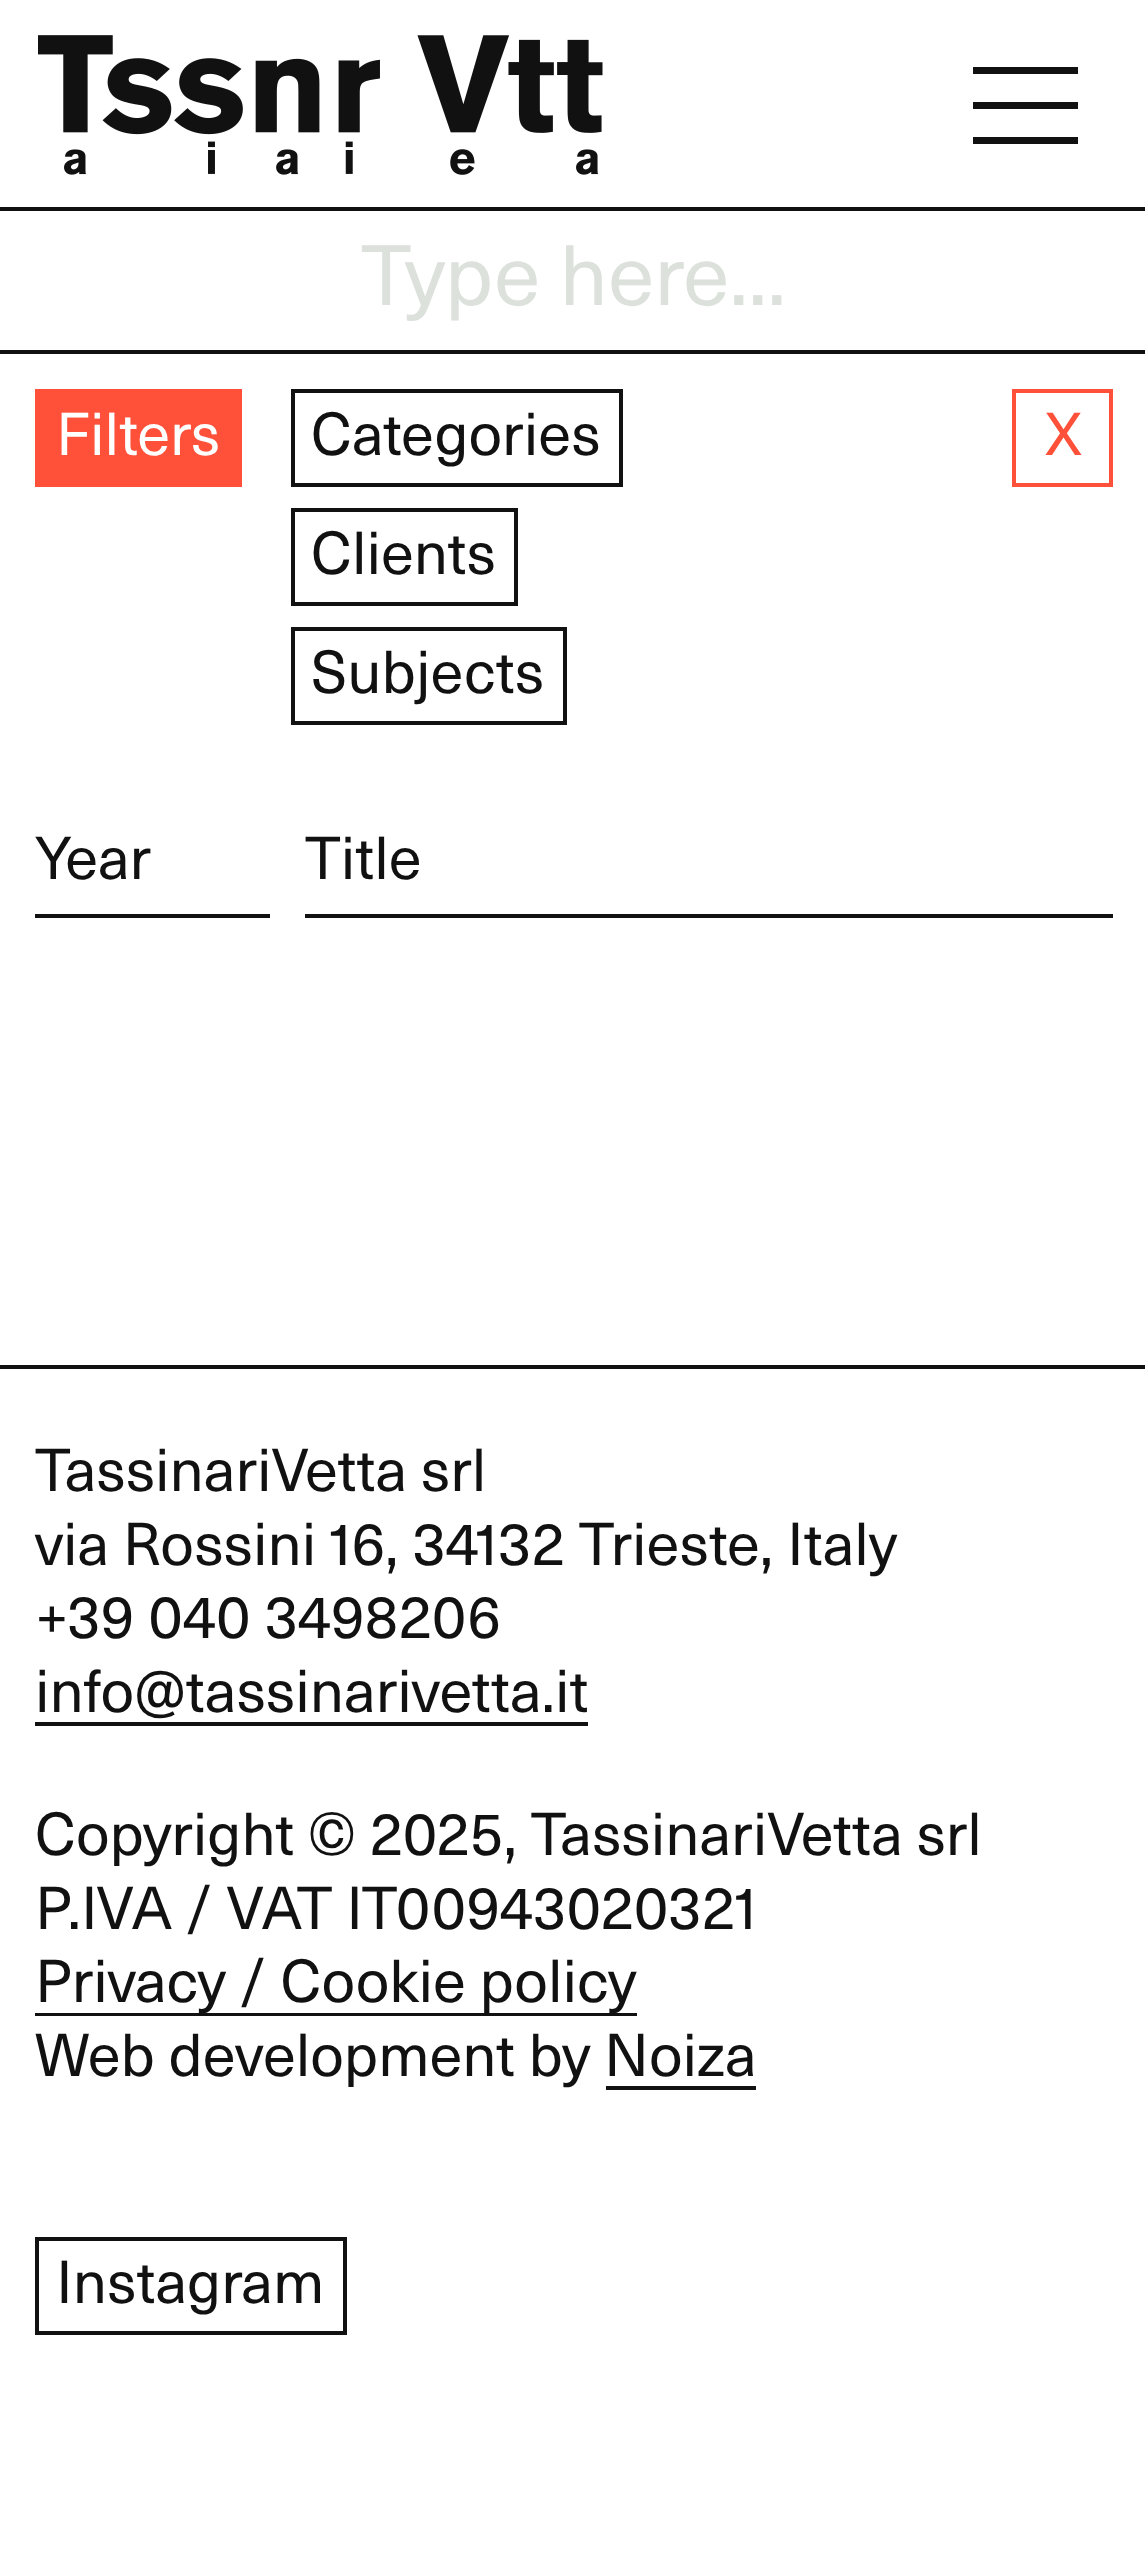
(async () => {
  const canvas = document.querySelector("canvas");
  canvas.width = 1145;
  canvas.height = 2558;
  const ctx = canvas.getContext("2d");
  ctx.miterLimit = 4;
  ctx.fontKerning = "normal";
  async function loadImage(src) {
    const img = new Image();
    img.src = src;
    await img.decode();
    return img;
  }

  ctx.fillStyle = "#ffffff";
  ctx.fillRect(0, 0, 1145, 2558);
  ctx.fillStyle = "#111111";
  ctx.fillRect(0, 207, 1145, 4);
  ctx.drawImage(await loadImage("img/1.png"), 38, 35, 565, 140);
  for (const [x, y, w, h, color] of [
    [973, 102, 105, 7, "#111111"],
    [973, 67, 105, 7, "#111111"],
    [973, 137, 105, 7, "#111111"],
    [0, 350, 1145, 4, "#111111"],
    [35, 389, 207, 98, "#ff503a"],
  ]) {
    ctx.fillStyle = color;
    ctx.fillRect(x, y, w, h);
  }
  ctx.strokeStyle = "#111111";
  ctx.lineWidth = 4;
  ctx.strokeRect(293, 391, 328, 94);
  ctx.strokeStyle = "#ff503a";
  ctx.strokeRect(1014, 391, 97, 94);
  ctx.strokeStyle = "#111111";
  ctx.strokeRect(293, 510, 223, 94);
  ctx.strokeRect(293, 629, 272, 94);
  for (const [x, y, w, h, color] of [
    [35, 914, 235, 4, "#111111"],
    [305, 914, 808, 4, "#111111"],
    [0, 1365, 1145, 4, "#111111"],
    [35, 1722, 553, 4, "#111111"],
    [35, 2013, 602, 3, "#111111"],
    [606, 2086, 150, 4, "#111111"],
  ]) {
    ctx.fillStyle = color;
    ctx.fillRect(x, y, w, h);
  }
  ctx.strokeRect(37, 2239, 308, 94);
  ctx.font = "84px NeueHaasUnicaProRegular";
  ctx.fillStyle = "#dce1dc";
  ctx.fillText("Type here...", 361, 305);
  ctx.font = "59.5px NeueHaasUnicaProRegular";
  ctx.fillStyle = "#ffffff";
  ctx.fillText("Filters", 56, 455);
  ctx.fillStyle = "#111111";
  ctx.fillText("Categories", 311, 455);
  ctx.fillStyle = "#ff503a";
  ctx.fillText("X", 1045, 455);
  ctx.fillStyle = "#111111";
  for (const [text, x, y] of [
    ["Clients", 311, 574],
    ["Subjects", 311, 693],
    ["Year", 35, 879],
    ["Title", 305, 879],
    ["TassinariVetta srl", 35, 1491],
  ]) {
    ctx.fillText(text, x, y);
  }
  ctx.font = "59.5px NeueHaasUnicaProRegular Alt";
  ctx.fillText("via Rossini 16, 34132 Trieste, Italy", 35, 1565);
  ctx.fillText("+39 040 3498206", 35, 1638);
  ctx.font = "59.5px NeueHaasUnicaProRegular";
  ctx.fillText("info@tassinarivetta.it", 35, 1712);
  ctx.fillText("Copyright © 2025, TassinariVetta srl", 35, 1855);
  ctx.font = "59.5px NeueHaasUnicaProRegular Alt";
  ctx.fillText("P.IVA / VAT IT00943020321", 35, 1929);
  ctx.font = "59.5px NeueHaasUnicaProRegular";
  for (const [text, x, y] of [
    ["Privacy / Cookie policy", 35, 2002],
    ["Web development by Noiza", 35, 2076],
    ["Instagram", 56, 2303],
  ]) {
    ctx.fillText(text, x, y);
  }
})();
